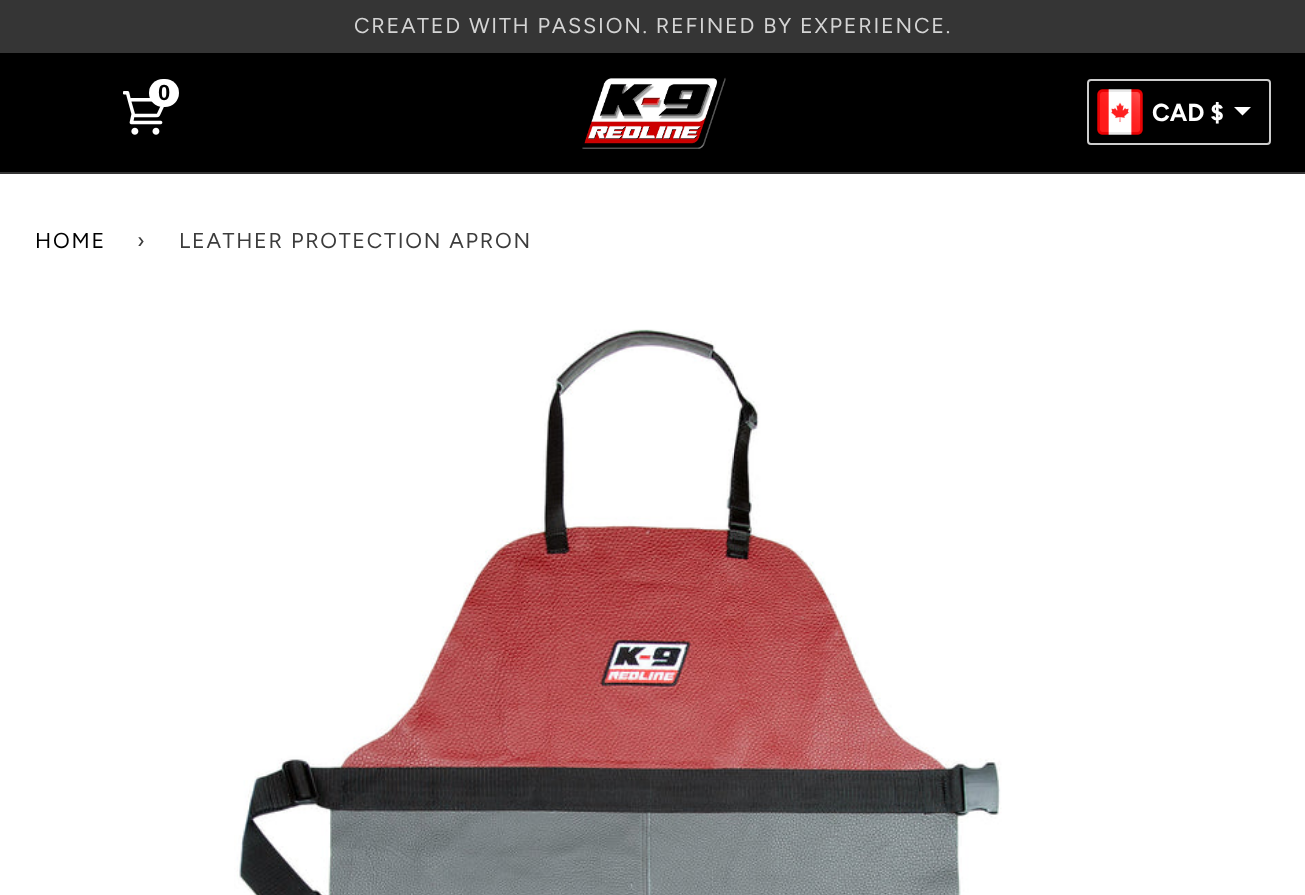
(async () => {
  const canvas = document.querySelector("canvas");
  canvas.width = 1305;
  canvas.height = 895;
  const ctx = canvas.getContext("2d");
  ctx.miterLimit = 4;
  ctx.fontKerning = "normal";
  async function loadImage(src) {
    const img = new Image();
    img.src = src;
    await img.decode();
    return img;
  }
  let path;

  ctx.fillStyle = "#ffffff";
  ctx.fillRect(0, 0, 1305, 895);
  for (const [x, y, w, h, color] of [
    [0, 0, 1305, 53, "#353535"],
    [0, 53, 1305, 119, "#000000"],
    [0, 172, 1305, 2, "#353535"],
  ]) {
    ctx.fillStyle = color;
    ctx.fillRect(x, y, w, h);
  }
  ctx.drawImage(await loadImage("img/1.png"), 123, 91, 41, 44);
  ctx.fillStyle = "#ffffff";
  ctx.beginPath();
  ctx.roundRect(149, 79, 30, 28, 14);
  ctx.fill();
  ctx.drawImage(await loadImage("img/2.png"), 582, 77, 144, 72);
  ctx.beginPath();
  ctx.roundRect(1088, 80, 182, 64, 3);
  ctx.strokeStyle = "#cccccc";
  ctx.lineWidth = 2;
  ctx.stroke();
  ctx.drawImage(await loadImage("img/3.png"), 1097, 89, 46, 46);
  path = new Path2D("M1234 107H1251L1242.5 115.5Z");
  ctx.fill(path);
  ctx.drawImage(await loadImage("img/4.png"), 234, 329, 768, 566);
  ctx.letterSpacing = "1.75px";
  ctx.font = "21.55px Figtree";
  ctx.fillStyle = "#d4d4d4";
  ctx.fillText("CREATED WITH PASSION. REFINED BY EXPERIENCE.", 354, 33);
  ctx.letterSpacing = "0px";
  ctx.font = "bold 22px Liberation Sans";
  ctx.fillStyle = "#000000";
  ctx.fillText("0", 158, 100);
  ctx.font = "bold 24.5px Figtree";
  ctx.fillStyle = "#ffffff";
  ctx.fillText("CAD $", 1152, 121);
  ctx.letterSpacing = "1.75px";
  ctx.font = "21.55px Figtree";
  ctx.fillStyle = "#000000";
  ctx.fillText("HOME", 35, 248);
  ctx.fillStyle = "#3c3c3c";
  ctx.fillText("›", 137, 248);
  ctx.fillText("LEATHER PROTECTION APRON", 179, 248);
})();
